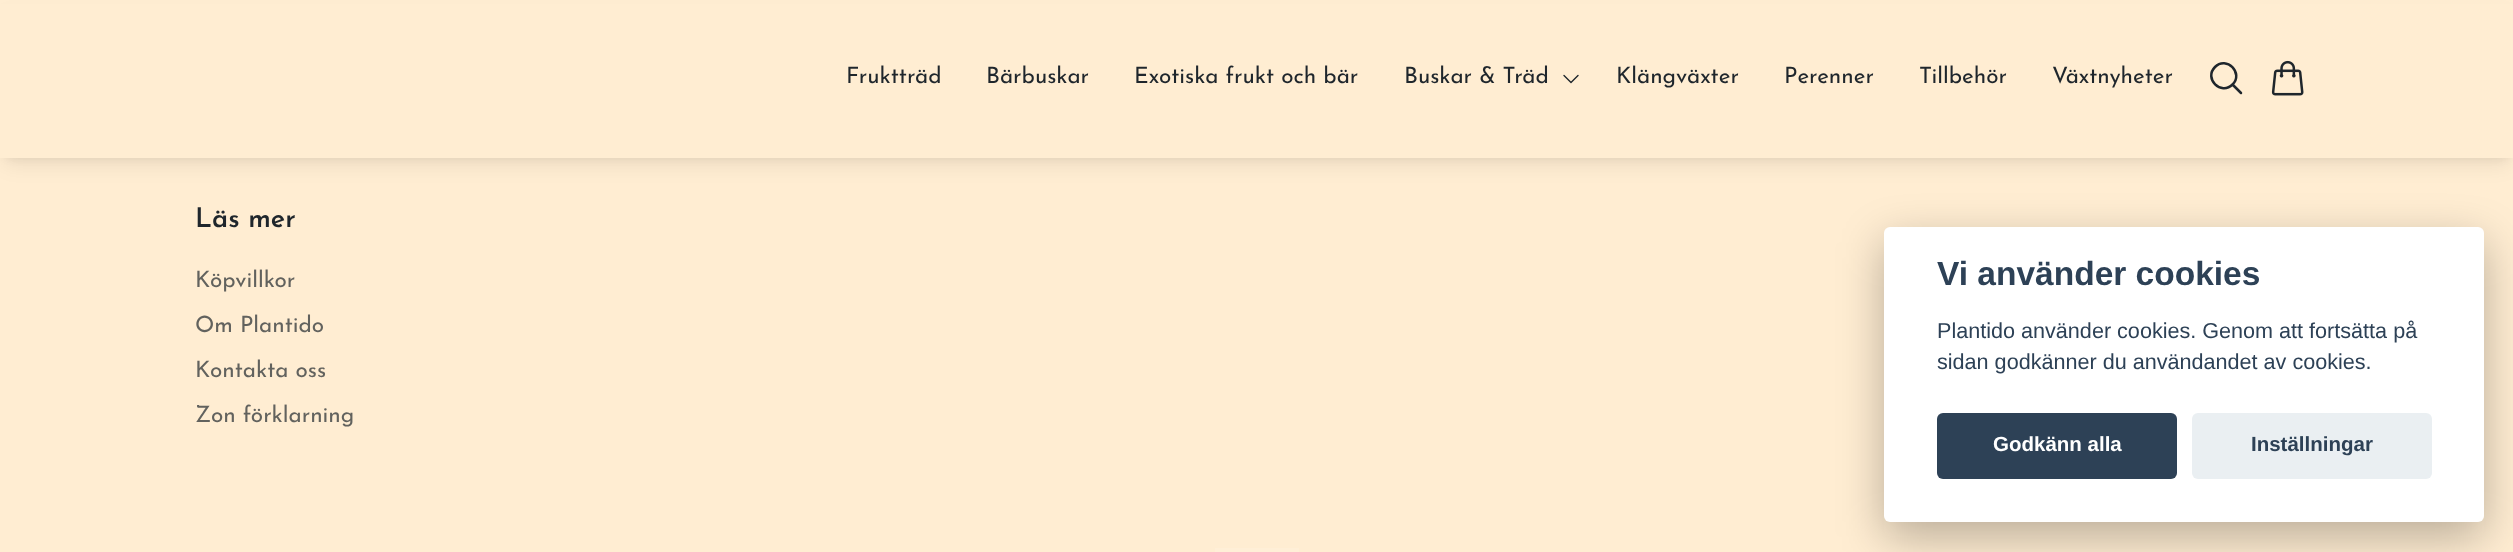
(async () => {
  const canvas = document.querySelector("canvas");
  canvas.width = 2513;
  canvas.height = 552;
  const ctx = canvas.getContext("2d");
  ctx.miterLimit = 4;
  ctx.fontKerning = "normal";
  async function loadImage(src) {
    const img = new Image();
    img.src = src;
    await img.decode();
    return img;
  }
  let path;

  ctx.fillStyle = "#ffedd2";
  ctx.fillRect(0, 0, 2513, 552);
  ctx.fillStyle = "rgba(0, 0, 0, 0.07)";
  ctx.filter = "blur(4.5px)";
  ctx.beginPath();
  ctx.rect(6, 12, 2502, 146);
  ctx.fill();
  ctx.filter = "none";
  ctx.filter = "blur(10px)";
  ctx.beginPath();
  ctx.rect(5, 17, 2505, 148);
  ctx.fill();
  ctx.filter = "none";
  ctx.fillStyle = "#ffedd2";
  ctx.fillRect(0, 4, 2513, 154);
  path = new Path2D("M1578 75.5L1571 82.5L1564 75.5");
  ctx.strokeStyle = "#1f262c";
  ctx.lineWidth = 1.4;
  ctx.lineCap = "round";
  ctx.lineJoin = "round";
  ctx.stroke(path);
  path = new Path2D("M2241 93L2232.5 84.5M2232.5 84.5C2244 73 2226.5 55.5 2215 67C2203.5 78.5 2221 96 2232.5 84.5Z");
  ctx.lineWidth = 2.5;
  ctx.stroke(path);
  ctx.drawImage(await loadImage("img/1.png"), 2271, 60, 33, 36);
  ctx.fillStyle = "#ffefd7";
  ctx.fillRect(1215, 548, 84, 4);
  ctx.fillStyle = "rgba(2, 2, 3, 0.28)";
  ctx.filter = "blur(22.5px)";
  ctx.beginPath();
  ctx.roundRect(1884, 242, 600, 295, 6);
  ctx.fill();
  ctx.filter = "none";
  ctx.fillStyle = "#ffffff";
  ctx.beginPath();
  ctx.roundRect(1884, 227, 600, 295, 6);
  ctx.fill();
  ctx.fillStyle = "#2d4156";
  ctx.beginPath();
  ctx.roundRect(1937, 413, 240, 66, 6);
  ctx.fill();
  ctx.fillStyle = "#eaeff2";
  ctx.beginPath();
  ctx.roundRect(2192, 413, 240, 66, 6);
  ctx.fill();
  ctx.font = "22.5px Josefin Sans";
  ctx.fillStyle = "#1f262c";
  for (const [text, x, y] of [
    ["Fruktträd", 846, 83],
    ["Bärbuskar", 986, 83],
    ["Exotiska frukt och bär", 1134, 83],
    ["Buskar & Träd", 1404, 83],
    ["Klängväxter", 1616, 83],
    ["Perenner", 1784, 83],
    ["Tillbehör", 1919, 83],
    ["Växtnyheter", 2052, 83],
  ]) {
    ctx.fillText(text, x, y);
  }
  ctx.font = "600 27px Josefin Sans";
  ctx.fillText("Läs mer", 195, 227);
  ctx.font = "22.5px Josefin Sans";
  ctx.fillStyle = "#62625e";
  for (const [text, x, y] of [
    ["Köpvillkor", 195, 287],
    ["Om Plantido", 195, 332],
    ["Kontakta oss", 195, 377],
    ["Zon förklarning", 195, 422],
  ]) {
    ctx.fillText(text, x, y);
  }
  ctx.font = "bold 33.5px Liberation Sans";
  ctx.fillStyle = "#2d4156";
  ctx.fillText("Vi använder cookies", 1937, 285);
  ctx.font = "21.6px Liberation Sans";
  ctx.fillText("Plantido använder cookies. Genom att fortsätta på", 1937, 338);
  ctx.fillText("sidan godkänner du användandet av cookies.", 1937, 369);
  ctx.font = "bold 20.5px Liberation Sans";
  ctx.fillStyle = "#ffffff";
  ctx.fillText("Godkänn alla", 1993, 451);
  ctx.fillStyle = "#2d4156";
  ctx.fillText("Inställningar", 2251, 451);
})();
